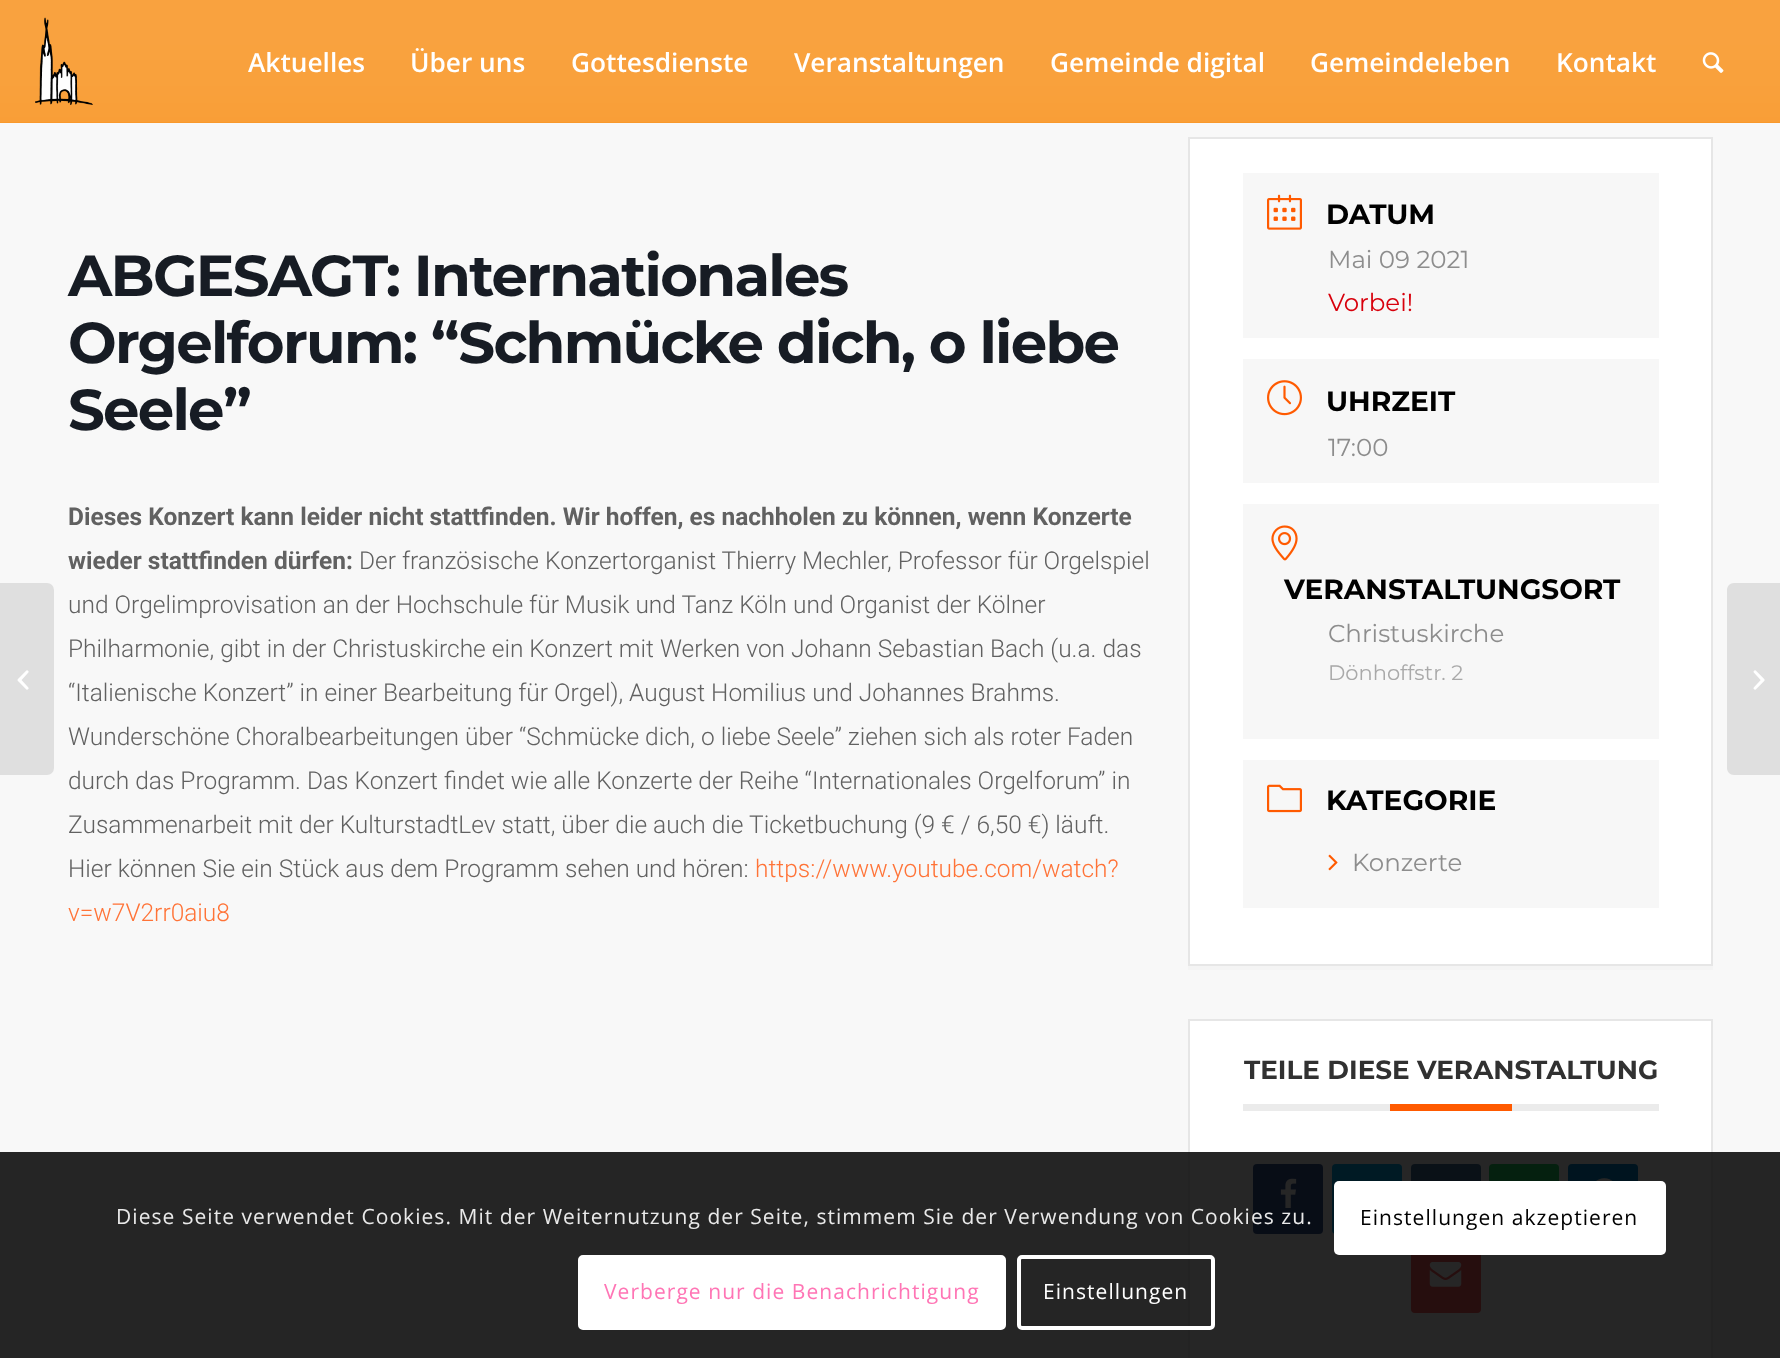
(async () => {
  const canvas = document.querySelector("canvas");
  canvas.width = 1780;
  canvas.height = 1358;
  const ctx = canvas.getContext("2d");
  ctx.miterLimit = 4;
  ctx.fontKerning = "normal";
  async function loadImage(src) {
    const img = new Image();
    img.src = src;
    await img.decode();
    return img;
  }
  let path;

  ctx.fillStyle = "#f8f8f8";
  ctx.fillRect(0, 0, 1780, 1358);
  ctx.fillStyle = "#f99421";
  ctx.fillRect(0, 0, 1780, 123);
  ctx.drawImage(await loadImage("img/1.png"), 0, 0, 1780, 123);
  ctx.drawImage(await loadImage("img/2.png"), 35, 17, 58, 88);
  ctx.drawImage(await loadImage("img/3.png"), 1702, 52, 22, 21);
  ctx.fillStyle = "#dfdfdf";
  ctx.beginPath();
  ctx.roundRect(0, 583, 54, 192, [0, 7, 7, 0]);
  ctx.fill();
  ctx.drawImage(await loadImage("img/4.png"), 17, 670, 12, 20);
  ctx.fillStyle = "#f4f4f4";
  path = new Path2D("M1188 140V970H1713V966H1188Z");
  ctx.fill(path);
  ctx.fillStyle = "#ffffff";
  ctx.beginPath();
  ctx.rect(1189, 138, 523, 827);
  ctx.fill();
  ctx.strokeStyle = "#e6e6e6";
  ctx.lineWidth = 2;
  ctx.stroke();
  ctx.fillStyle = "#f7f7f7";
  ctx.fillRect(1243, 173, 416, 165);
  ctx.drawImage(await loadImage("img/5.png"), 1267, 194, 35, 36);
  ctx.fillRect(1243, 359, 416, 124);
  ctx.drawImage(await loadImage("img/6.png"), 1267, 380, 35, 36);
  ctx.fillRect(1243, 504, 416, 235);
  ctx.drawImage(await loadImage("img/7.png"), 1271, 525, 27, 36);
  ctx.fillRect(1243, 760, 416, 148);
  ctx.drawImage(await loadImage("img/8.png"), 1267, 784, 35, 29);
  ctx.drawImage(await loadImage("img/9.png"), 1328, 854, 10, 17);
  ctx.fillStyle = "#ffffff";
  ctx.beginPath();
  ctx.rect(1189, 1020, 523, 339);
  ctx.fill();
  ctx.stroke();
  ctx.fillStyle = "#ebebeb";
  ctx.fillRect(1243, 1104, 416, 7);
  ctx.fillStyle = "#ff5a00";
  ctx.fillRect(1390, 1104, 122, 7);
  ctx.fillStyle = "#3b5996";
  ctx.beginPath();
  ctx.roundRect(1253, 1164, 70, 70, 4);
  ctx.fill();
  ctx.drawImage(await loadImage("img/10.png"), 1280, 1178, 17, 30);
  ctx.fillStyle = "#00acee";
  ctx.beginPath();
  ctx.roundRect(1332, 1164, 70, 70, 4);
  ctx.fill();
  ctx.fillStyle = "#457399";
  ctx.beginPath();
  ctx.roundRect(1411, 1164, 70, 70, 4);
  ctx.fill();
  ctx.fillStyle = "#25d366";
  ctx.beginPath();
  ctx.roundRect(1489, 1164, 70, 70, 4);
  ctx.fill();
  ctx.drawImage(await loadImage("img/11.png"), 1525, 1180, 2, 1);
  ctx.fillStyle = "#0088cc";
  ctx.beginPath();
  ctx.roundRect(1568, 1164, 70, 70, 4);
  ctx.fill();
  ctx.drawImage(await loadImage("img/12.png"), 1596, 1178, 17, 3);
  ctx.fillStyle = "#ff5d5e";
  ctx.beginPath();
  ctx.roundRect(1411, 1243, 70, 70, 4);
  ctx.fill();
  ctx.drawImage(await loadImage("img/13.png"), 1429, 1262, 33, 25);
  ctx.fillStyle = "#dfdfdf";
  path = new Path2D("M1734 583H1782V775H1734C1730 775 1727 772 1727 768V590C1727 586 1730 583 1734 583Z");
  ctx.fill(path);
  ctx.drawImage(await loadImage("img/14.png"), 1753, 670, 12, 20);
  ctx.fillStyle = "rgba(0, 0, 0, 0.85)";
  ctx.fillRect(0, 1152, 1780, 206);
  ctx.fillStyle = "#ffffff";
  ctx.beginPath();
  ctx.roundRect(1334, 1181, 332, 74, 5);
  ctx.fill();
  ctx.beginPath();
  ctx.roundRect(580, 1257, 424, 71, 3);
  ctx.fill();
  ctx.strokeStyle = "#ffffff";
  ctx.lineWidth = 4;
  ctx.stroke();
  ctx.beginPath();
  ctx.roundRect(1019, 1257, 194, 71, 3);
  ctx.stroke();
  ctx.font = "600 26.25px Open Sans";
  for (const [text, x, y] of [
    ["Aktuelles", 248, 72],
    ["Über uns", 410, 72],
    ["Gottesdienste", 571, 72],
    ["Veranstaltungen", 794, 72],
    ["Gemeinde digital", 1050, 72],
    ["Gemeindeleben", 1310, 72],
    ["Kontakt", 1556, 72],
  ]) {
    ctx.fillText(text, x, y);
  }
  ctx.letterSpacing = "-1.75px";
  ctx.font = "bold 57.75px Montserrat";
  ctx.fillStyle = "#171c24";
  for (const [text, x, y] of [
    ["ABGESAGT: Internationales", 68, 296],
    ["Orgelforum: “Schmücke dich, o liebe", 68, 363],
    ["Seele”", 68, 430],
  ]) {
    ctx.fillText(text, x, y);
  }
  ctx.letterSpacing = "0px";
  ctx.font = "bold 24.5px Roboto";
  ctx.fillStyle = "#616161";
  ctx.fillText("Dieses Konzert kann leider nicht stattfinden. Wir hoffen, es nachholen zu können, wenn Konzerte", 68, 525);
  ctx.fillText("wieder stattfinden dürfen:", 68, 569);
  ctx.font = "300 24.5px Roboto";
  for (const [text, x, y] of [
    ["Der französische Konzertorganist Thierry Mechler, Professor für Orgelspiel", 359, 569],
    ["und Orgelimprovisation an der Hochschule für Musik und Tanz Köln und Organist der Kölner", 68, 613],
    ["Philharmonie, gibt in der Christuskirche ein Konzert mit Werken von Johann Sebastian Bach (u.a. das", 68, 657],
    ["“Italienische Konzert” in einer Bearbeitung für Orgel), August Homilius und Johannes Brahms.", 68, 701],
    ["Wunderschöne Choralbearbeitungen über “Schmücke dich, o liebe Seele” ziehen sich als roter Faden", 68, 745],
    ["durch das Programm. Das Konzert findet wie alle Konzerte der Reihe “Internationales Orgelforum” in", 68, 789],
    ["Zusammenarbeit mit der KulturstadtLev statt, über die auch die Ticketbuchung (9 € / 6,50 €) läuft.", 68, 833],
    ["Hier können Sie ein Stück aus dem Programm sehen und hören:", 68, 877],
  ]) {
    ctx.fillText(text, x, y);
  }
  ctx.fillStyle = "#ff7337";
  ctx.fillText("https://www.youtube.com/watch?", 755, 877);
  ctx.fillText("v=w7V2rr0aiu8", 68, 921);
  ctx.font = "bold 28px Montserrat";
  ctx.fillStyle = "#000000";
  ctx.fillText("DATUM", 1326, 224);
  ctx.font = "24.5px Montserrat";
  ctx.fillStyle = "#8d8d8d";
  ctx.fillText("Mai 09 2021", 1328, 268);
  ctx.fillStyle = "#d8000c";
  ctx.fillText("Vorbei!", 1328, 311);
  ctx.font = "bold 28px Montserrat";
  ctx.fillStyle = "#000000";
  ctx.fillText("UHRZEIT", 1326, 411);
  ctx.font = "24.5px Montserrat";
  ctx.fillStyle = "#8d8d8d";
  ctx.fillText("17:00", 1328, 456);
  ctx.font = "bold 28px Montserrat";
  ctx.fillStyle = "#000000";
  ctx.fillText("VERANSTALTUNGSORT", 1284, 599);
  ctx.font = "24.5px Montserrat";
  ctx.fillStyle = "#8d8d8d";
  ctx.fillText("Christuskirche", 1328, 642);
  ctx.font = "21px Montserrat";
  ctx.fillStyle = "#a9a9a9";
  ctx.fillText("Dönhoffstr. 2", 1328, 680);
  ctx.font = "bold 28px Montserrat";
  ctx.fillStyle = "#000000";
  ctx.fillText("KATEGORIE", 1326, 810);
  ctx.font = "24.5px Montserrat";
  ctx.fillStyle = "#8d8d8d";
  ctx.fillText("Konzerte", 1352, 871);
  ctx.font = "bold 26.25px Montserrat";
  ctx.fillStyle = "#313131";
  ctx.fillText("TEILE DIESE VERANSTALTUNG", 1244, 1079);
  ctx.letterSpacing = "1.05px";
  ctx.font = "21px Open Sans";
  ctx.fillStyle = "#e9e9e9";
  ctx.fillText("Diese Seite verwendet Cookies. Mit der Weiternutzung der Seite, stimmem Sie der Verwendung von Cookies zu.", 116, 1224);
  ctx.fillStyle = "#000000";
  ctx.fillText("Einstellungen akzeptieren", 1360, 1225);
  ctx.fillStyle = "#ff75b5";
  ctx.fillText("Verberge nur die Benachrichtigung", 604, 1299);
  ctx.fillStyle = "#ffffff";
  ctx.fillText("Einstellungen", 1043, 1299);
})();
